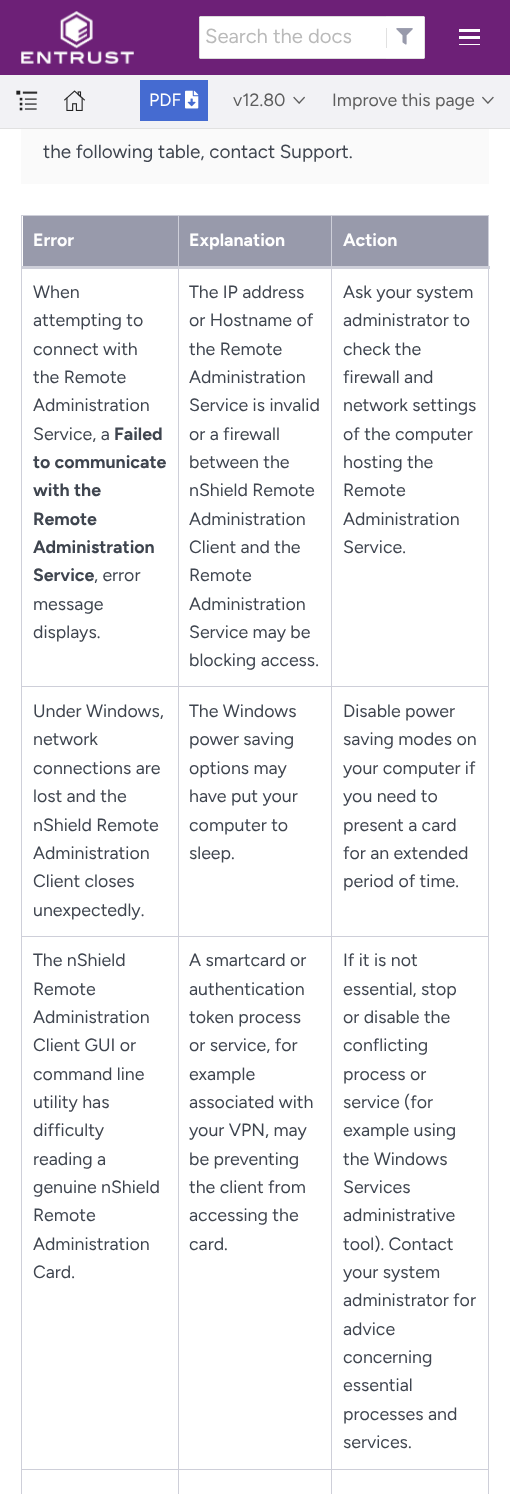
(async () => {
  const canvas = document.querySelector("canvas");
  canvas.width = 510;
  canvas.height = 1494;
  const ctx = canvas.getContext("2d");
  ctx.miterLimit = 4;
  ctx.fontKerning = "normal";
  async function loadImage(src) {
    const img = new Image();
    img.src = src;
    await img.decode();
    return img;
  }

  ctx.fillStyle = "#ffffff";
  ctx.fillRect(0, 0, 510, 1494);
  ctx.fillStyle = "#6d2077";
  ctx.fillRect(0, 0, 510, 75);
  ctx.drawImage(await loadImage("img/1.png"), 21, 11, 113, 53);
  ctx.fillStyle = "#ffffff";
  ctx.beginPath();
  ctx.roundRect(199, 16, 187, 43, [2, 0, 0, 2]);
  ctx.fill();
  for (const [x, y, w, h, color] of [
    [200, 16, 186, 1, "#dbdbdb"],
    [200, 58, 186, 1, "#dbdbdb"],
    [199, 18, 1, 40, "#dbdbdb"],
  ]) {
    ctx.fillStyle = color;
    ctx.fillRect(x, y, w, h);
  }
  ctx.fillStyle = "#ffffff";
  ctx.beginPath();
  ctx.roundRect(386, 16, 39, 43, [0, 2, 2, 0]);
  ctx.fill();
  for (const [x, y, w, h, color] of [
    [386, 28, 1, 20, "#e1e1e1"],
    [386, 16, 38, 1, "#e1e1e1"],
    [424, 18, 1, 40, "#e1e1e1"],
    [386, 58, 38, 1, "#e1e1e1"],
  ]) {
    ctx.fillStyle = color;
    ctx.fillRect(x, y, w, h);
  }
  ctx.drawImage(await loadImage("img/2.png"), 396, 28, 17, 17);
  for (const [x, y, w, h, color] of [
    [459, 29, 21, 3, "#ffffff"],
    [459, 36, 21, 3, "#ffffff"],
    [459, 44, 21, 1, "#ffffff"],
    [0, 128, 510, 1, "#e1e1e1"],
    [0, 75, 510, 53, "#f2f2f5"],
  ]) {
    ctx.fillStyle = color;
    ctx.fillRect(x, y, w, h);
  }
  ctx.drawImage(await loadImage("img/3.png"), 16, 90, 22, 21);
  ctx.drawImage(await loadImage("img/4.png"), 64, 90, 22, 21);
  ctx.fillStyle = "#456bd1";
  ctx.fillRect(140, 80, 68, 41);
  ctx.drawImage(await loadImage("img/5.png"), 185, 90, 14, 19);
  ctx.drawImage(await loadImage("img/6.png"), 293, 96, 12, 8);
  ctx.drawImage(await loadImage("img/7.png"), 482, 96, 12, 8);
  for (const [x, y, w, h, color] of [
    [21, 129, 468, 55, "#fafafa"],
    [21, 215, 468, 1, "#cecfd9"],
    [488, 215, 1, 1279, "#cecfd9"],
    [21, 215, 1, 1279, "#cecfd9"],
    [23, 216, 465, 50, "#989aab"],
    [331, 686, 158, 1, "#cecfd9"],
    [331, 936, 158, 1, "#cecfd9"],
    [331, 1469, 158, 1, "#cecfd9"],
    [331, 1469, 1, 25, "#cecfd9"],
    [178, 1469, 155, 1, "#cecfd9"],
    [331, 936, 1, 534, "#cecfd9"],
    [178, 936, 155, 1, "#cecfd9"],
    [331, 686, 1, 252, "#cecfd9"],
    [178, 686, 155, 1, "#cecfd9"],
    [178, 1469, 1, 25, "#cecfd9"],
    [21, 1469, 158, 1, "#cecfd9"],
    [178, 936, 1, 534, "#cecfd9"],
    [21, 936, 158, 1, "#cecfd9"],
    [178, 686, 1, 252, "#cecfd9"],
    [21, 686, 158, 1, "#cecfd9"],
    [178, 215, 1, 473, "#cecfd9"],
    [331, 215, 1, 473, "#cecfd9"],
    [21, 266, 469, 3, "#cecfd9"],
  ]) {
    ctx.fillStyle = color;
    ctx.fillRect(x, y, w, h);
  }
  ctx.font = "20.25px Figtree";
  ctx.fillStyle = "#bababa";
  ctx.fillText("Search the docs", 205, 43);
  ctx.font = "17.75px Figtree";
  ctx.fillStyle = "#ffffff";
  ctx.fillText("PDF", 149, 106);
  ctx.fillStyle = "#5d5d5d";
  ctx.fillText("v12.80", 233, 106);
  ctx.fillText("Improve this page", 332, 106);
  ctx.font = "18.9px Figtree";
  ctx.fillStyle = "#3f454f";
  ctx.fillText("the following table, contact Support.", 43, 158);
  ctx.font = "bold 17.75px Figtree";
  ctx.fillStyle = "#ffffff";
  for (const [text, x, y] of [
    ["Error", 33, 246],
    ["Explanation", 189, 246],
    ["Action", 343, 246],
  ]) {
    ctx.fillText(text, x, y);
  }
  ctx.font = "17.75px Figtree";
  ctx.fillStyle = "#3f454f";
  for (const [text, x, y] of [
    ["When", 33, 298],
    ["attempting to", 33, 326],
    ["connect with", 33, 355],
    ["the Remote", 33, 383],
    ["Administration", 33, 411],
    ["Service, a", 33, 440],
  ]) {
    ctx.fillText(text, x, y);
  }
  ctx.font = "bold 17.75px Figtree";
  for (const [text, x, y] of [
    ["Failed", 114, 440],
    ["to communicate", 33, 468],
    ["with the", 33, 496],
    ["Remote", 33, 525],
    ["Administration", 33, 553],
    ["Service", 33, 581],
  ]) {
    ctx.fillText(text, x, y);
  }
  ctx.font = "17.75px Figtree";
  for (const [text, x, y] of [
    [", error", 94, 581],
    ["message", 33, 610],
    ["displays.", 33, 638],
    ["The IP address", 189, 298],
    ["or Hostname of", 189, 326],
    ["the Remote", 189, 355],
    ["Administration", 189, 383],
    ["Service is invalid", 189, 411],
    ["or a firewall", 189, 440],
    ["between the", 189, 468],
    ["nShield Remote", 189, 496],
    ["Administration", 189, 525],
    ["Client and the", 189, 553],
    ["Remote", 189, 581],
    ["Administration", 189, 610],
    ["Service may be", 189, 638],
    ["blocking access.", 189, 666],
    ["Ask your system", 343, 298],
    ["administrator to", 343, 326],
    ["check the", 343, 355],
    ["firewall and", 343, 383],
    ["network settings", 343, 411],
    ["of the computer", 343, 440],
    ["hosting the", 343, 468],
    ["Remote", 343, 496],
    ["Administration", 343, 525],
    ["Service.", 343, 553],
    ["Under Windows,", 33, 717],
    ["network", 33, 745],
    ["connections are", 33, 774],
    ["lost and the", 33, 802],
    ["nShield Remote", 33, 831],
    ["Administration", 33, 859],
    ["Client closes", 33, 887],
    ["unexpectedly.", 33, 916],
    ["The Windows", 189, 717],
    ["power saving", 189, 745],
    ["options may", 189, 774],
    ["have put your", 189, 802],
    ["computer to", 189, 831],
    ["sleep.", 189, 859],
    ["Disable power", 343, 717],
    ["saving modes on", 343, 745],
    ["your computer if", 343, 774],
    ["you need to", 343, 802],
    ["present a card", 343, 831],
    ["for an extended", 343, 859],
    ["period of time.", 343, 887],
    ["The nShield", 33, 966],
    ["Remote", 33, 995],
    ["Administration", 33, 1023],
    ["Client GUI or", 33, 1051],
    ["command line", 33, 1080],
    ["utility has", 33, 1108],
    ["difficulty", 33, 1136],
    ["reading a", 33, 1165],
    ["genuine nShield", 33, 1193],
    ["Remote", 33, 1221],
    ["Administration", 33, 1250],
    ["Card.", 33, 1278],
    ["A smartcard or", 189, 966],
    ["authentication", 189, 995],
    ["token process", 189, 1023],
    ["or service, for", 189, 1051],
    ["example", 189, 1080],
    ["associated with", 189, 1108],
    ["your VPN, may", 189, 1136],
    ["be preventing", 189, 1165],
    ["the client from", 189, 1193],
    ["accessing the", 189, 1221],
    ["card.", 189, 1250],
    ["If it is not", 343, 966],
    ["essential, stop", 343, 995],
    ["or disable the", 343, 1023],
    ["conflicting", 343, 1051],
    ["process or", 343, 1080],
    ["service (for", 343, 1108],
    ["example using", 343, 1136],
    ["the Windows", 343, 1165],
    ["Services", 343, 1193],
    ["administrative", 343, 1221],
    ["tool). Contact", 343, 1250],
    ["your system", 343, 1278],
    ["administrator for", 343, 1306],
    ["advice", 343, 1335],
    ["concerning", 343, 1363],
    ["essential", 343, 1391],
    ["processes and", 343, 1420],
    ["services.", 343, 1448],
  ]) {
    ctx.fillText(text, x, y);
  }
})();
